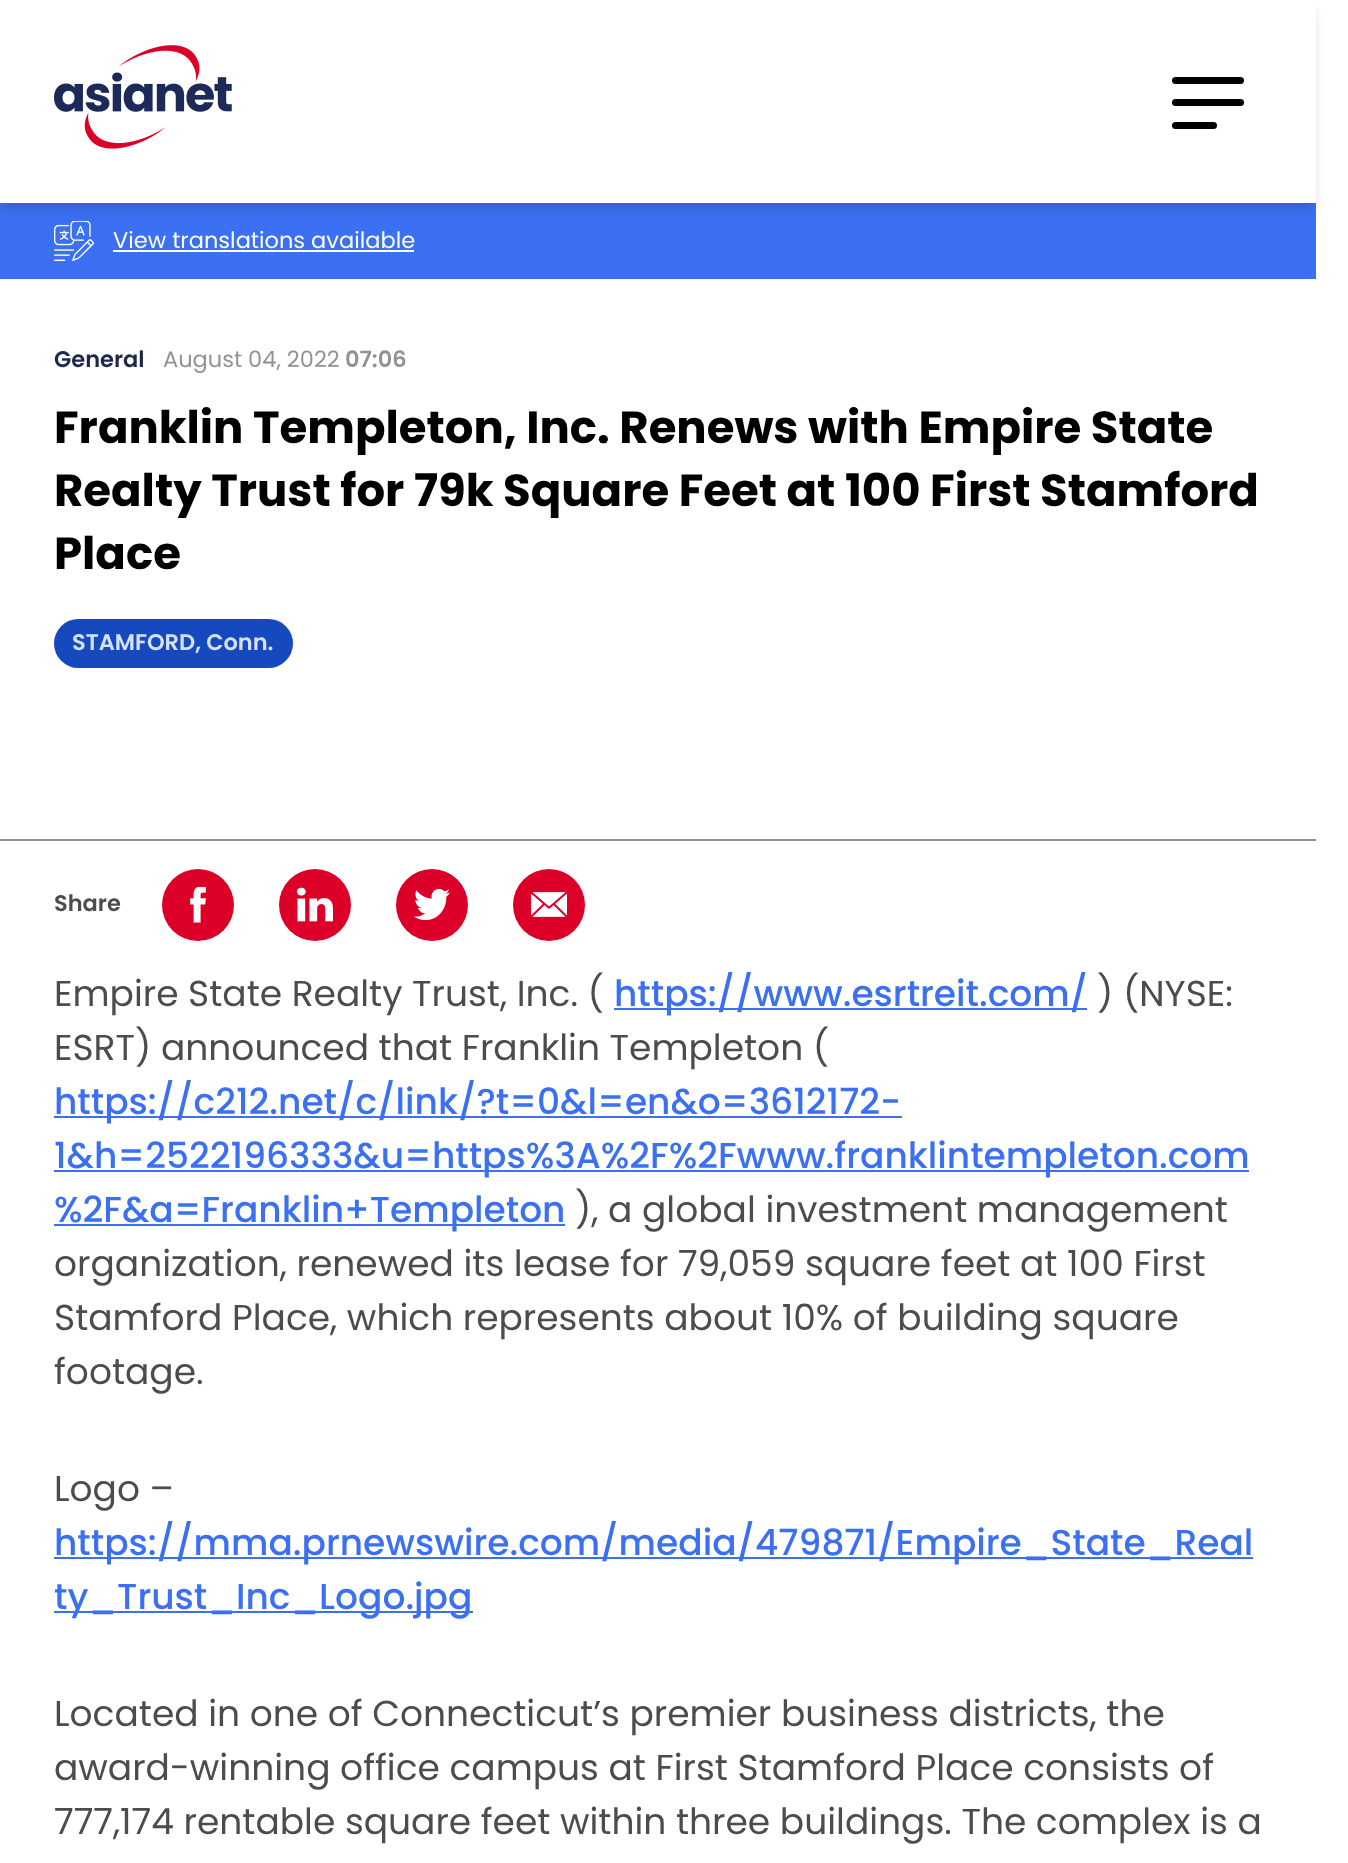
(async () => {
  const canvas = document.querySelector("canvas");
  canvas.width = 1348;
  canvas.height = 1863;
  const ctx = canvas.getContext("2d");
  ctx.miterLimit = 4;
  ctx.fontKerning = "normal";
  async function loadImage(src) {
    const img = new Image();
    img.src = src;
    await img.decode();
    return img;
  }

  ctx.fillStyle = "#ffffff";
  ctx.fillRect(0, 0, 1348, 1863);
  ctx.fillStyle = "#3a70f1";
  ctx.fillRect(0, 203, 1316, 76);
  ctx.fillStyle = "rgba(0, 0, 0, 0.1)";
  ctx.filter = "blur(4.5px)";
  ctx.beginPath();
  ctx.rect(5, 9, 1307, 194);
  ctx.fill();
  ctx.filter = "none";
  ctx.drawImage(await loadImage("img/2.png"), 54, 221, 40, 40);
  ctx.filter = "blur(7px)";
  ctx.beginPath();
  ctx.rect(2, 11, 1312, 198);
  ctx.fill();
  ctx.filter = "none";
  ctx.fillStyle = "#ffffff";
  ctx.fillRect(0, 1, 1316, 202);
  ctx.drawImage(await loadImage("img/1.png"), 54, 45, 178, 104);
  ctx.fillStyle = "#000000";
  ctx.beginPath();
  ctx.roundRect(1172, 122, 45, 7, 3.5);
  ctx.fill();
  ctx.beginPath();
  ctx.roundRect(1172, 77, 72, 7, 3.5);
  ctx.fill();
  ctx.beginPath();
  ctx.roundRect(1172, 99, 72, 7, 3.5);
  ctx.fill();
  ctx.fillStyle = "#ffffff";
  ctx.fillRect(113, 250, 301, 2);
  ctx.fillStyle = "#1749be";
  ctx.beginPath();
  ctx.roundRect(54, 619, 239, 49, 24.5);
  ctx.fill();
  ctx.fillStyle = "#929292";
  ctx.fillRect(0, 839, 1316, 2);
  ctx.fillStyle = "#dc0028";
  ctx.beginPath();
  ctx.arc(198, 905, 36, 0, Math.PI * 2);
  ctx.fill();
  ctx.drawImage(await loadImage("img/3.png"), 190, 887, 16, 36);
  ctx.beginPath();
  ctx.arc(315, 905, 36, 0, Math.PI * 2);
  ctx.fill();
  ctx.drawImage(await loadImage("img/4.png"), 297, 887, 36, 35);
  ctx.beginPath();
  ctx.arc(432, 905, 36, 0, Math.PI * 2);
  ctx.fill();
  ctx.drawImage(await loadImage("img/5.png"), 414, 888, 36, 33);
  ctx.beginPath();
  ctx.arc(549, 905, 36, 0, Math.PI * 2);
  ctx.fill();
  ctx.drawImage(await loadImage("img/6.png"), 531, 892, 36, 25);
  for (const [x, y, w, h, color] of [
    [614, 1008, 473, 2, "#3a70f1"],
    [54, 1116, 848, 2, "#3a70f1"],
    [54, 1170, 1195, 2, "#3a70f1"],
    [54, 1224, 511, 2, "#3a70f1"],
    [54, 1557, 1199, 2, "#3a70f1"],
    [54, 1611, 419, 2, "#3a70f1"],
  ]) {
    ctx.fillStyle = color;
    ctx.fillRect(x, y, w, h);
  }
  ctx.font = "22.5px Poppins";
  ctx.fillStyle = "#ffffff";
  ctx.fillText("View translations available", 113, 248);
  ctx.font = "600 22.5px Poppins";
  ctx.fillStyle = "#1f2848";
  ctx.fillText("General", 54, 367);
  ctx.font = "22.5px Poppins";
  ctx.fillStyle = "#929292";
  ctx.fillText("August 04, 2022", 163, 367);
  ctx.font = "600 22.5px Poppins";
  ctx.fillText("07:06", 345, 367);
  ctx.font = "bold 45px Poppins";
  ctx.fillStyle = "#000000";
  for (const [text, x, y] of [
    ["Franklin Templeton, Inc. Renews with Empire State", 54, 443],
    ["Realty Trust for 79k Square Feet at 100 First Stamford", 54, 506],
    ["Place", 54, 569],
  ]) {
    ctx.fillText(text, x, y);
  }
  ctx.font = "600 22.5px Poppins";
  ctx.fillStyle = "#d4e1ff";
  ctx.fillText("STAMFORD, Conn.", 72, 650);
  ctx.fillStyle = "#4b4c4e";
  ctx.fillText("Share", 54, 911);
  ctx.font = "36px Poppins";
  ctx.fillText("Empire State Realty Trust, Inc. (", 54, 1006);
  ctx.font = "500 36px Poppins";
  ctx.fillStyle = "#3a70f1";
  ctx.fillText("https://www.esrtreit.com/", 614, 1006);
  ctx.font = "36px Poppins";
  ctx.fillStyle = "#4b4c4e";
  ctx.fillText(") (NYSE:", 1097, 1006);
  ctx.fillText("ESRT) announced that Franklin Templeton (", 54, 1060);
  ctx.font = "500 36px Poppins";
  ctx.fillStyle = "#3a70f1";
  for (const [text, x, y] of [
    ["https://c212.net/c/link/?t=0&l=en&o=3612172-", 54, 1114],
    ["1&h=2522196333&u=https%3A%2F%2Fwww.franklintempleton.com", 54, 1168],
    ["%2F&a=Franklin+Templeton", 54, 1222],
  ]) {
    ctx.fillText(text, x, y);
  }
  ctx.font = "36px Poppins";
  ctx.fillStyle = "#4b4c4e";
  for (const [text, x, y] of [
    ["), a global investment management", 575, 1222],
    ["organization, renewed its lease for 79,059 square feet at 100 First", 54, 1276],
    ["Stamford Place, which represents about 10% of building square", 54, 1330],
    ["footage.", 54, 1384],
    ["Logo –", 54, 1501],
  ]) {
    ctx.fillText(text, x, y);
  }
  ctx.font = "500 36px Poppins";
  ctx.fillStyle = "#3a70f1";
  ctx.fillText("https://mma.prnewswire.com/media/479871/Empire_State_Real", 54, 1555);
  ctx.fillText("ty_Trust_Inc_Logo.jpg", 54, 1609);
  ctx.font = "36px Poppins";
  ctx.fillStyle = "#4b4c4e";
  for (const [text, x, y] of [
    ["Located in one of Connecticut’s premier business districts, the", 54, 1726],
    ["award-winning office campus at First Stamford Place consists of", 54, 1780],
    ["777,174 rentable square feet within three buildings. The complex is a", 54, 1834],
  ]) {
    ctx.fillText(text, x, y);
  }
})();
